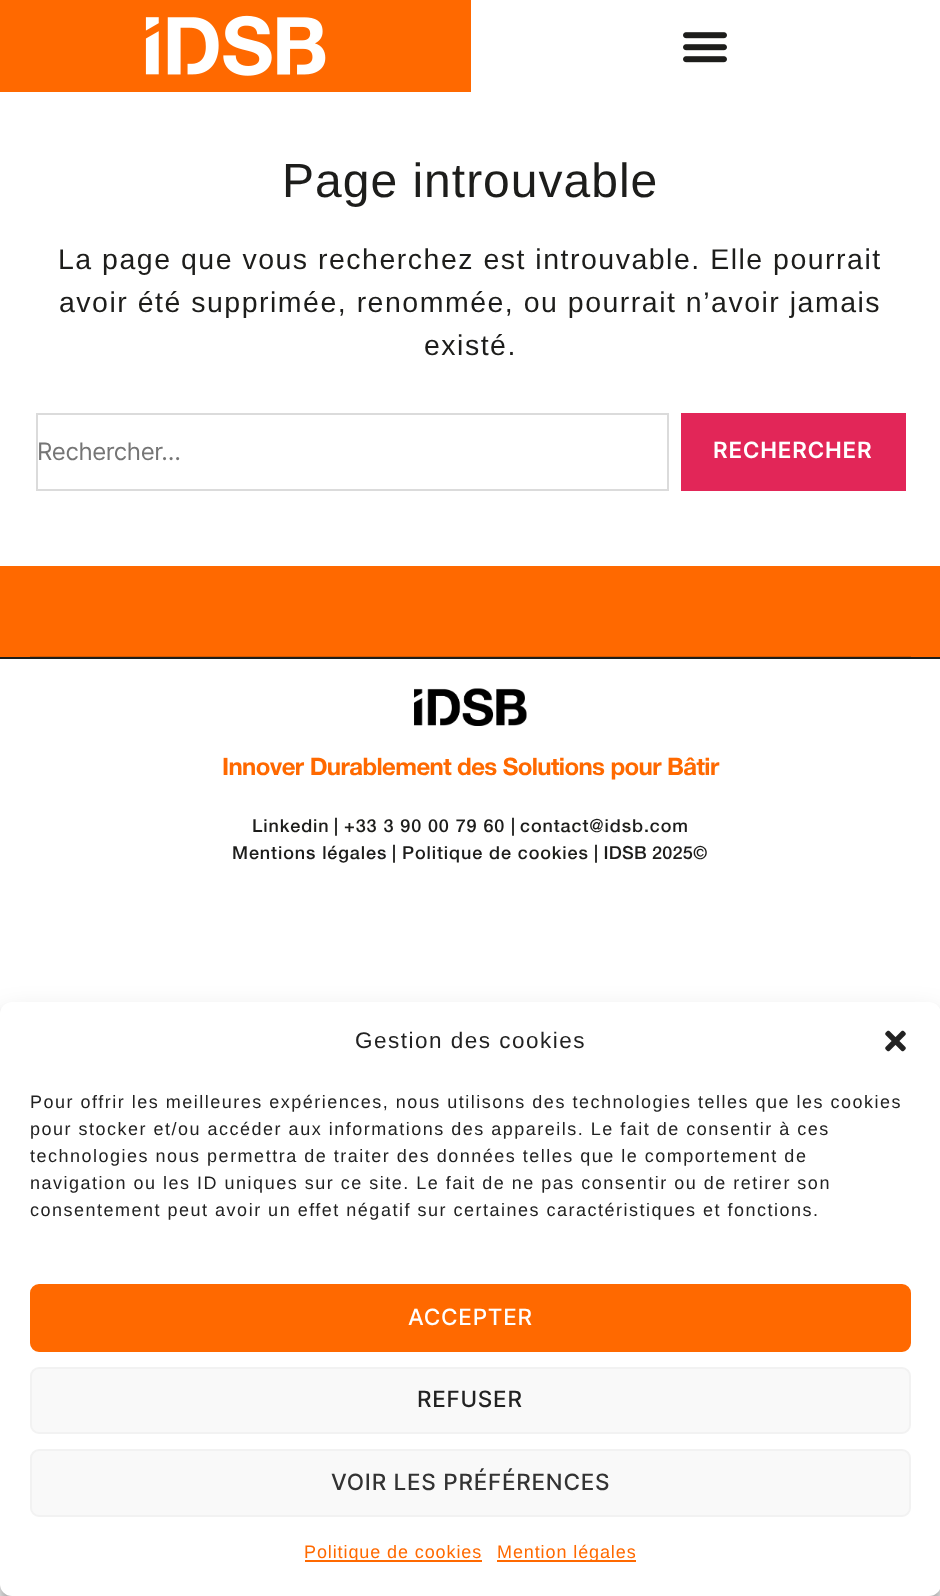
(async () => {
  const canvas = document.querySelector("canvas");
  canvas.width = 940;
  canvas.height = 1596;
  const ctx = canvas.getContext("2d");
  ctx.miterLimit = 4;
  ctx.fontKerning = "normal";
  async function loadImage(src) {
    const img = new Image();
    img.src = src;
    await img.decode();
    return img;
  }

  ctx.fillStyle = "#ffffff";
  ctx.fillRect(0, 0, 940, 1596);
  ctx.fillStyle = "#ff6900";
  ctx.fillRect(0, 0, 471, 92);
  ctx.drawImage(await loadImage("img/1.png"), 145, 15, 181, 61);
  ctx.drawImage(await loadImage("img/2.png"), 683, 32, 44, 31);
  ctx.strokeStyle = "#dbdbdb";
  ctx.lineWidth = 2;
  ctx.strokeRect(37, 414, 631, 76);
  for (const [x, y, w, h, color] of [
    [681, 413, 225, 78, "#e22658"],
    [0, 566, 940, 91, "#ff6900"],
    [30, 656, 881, 1, "#d65900"],
    [0, 657, 940, 2, "#1d1d1b"],
  ]) {
    ctx.fillStyle = color;
    ctx.fillRect(x, y, w, h);
  }
  ctx.drawImage(await loadImage("img/3.png"), 414, 688, 113, 38);
  ctx.fillStyle = "rgba(0, 0, 0, 0.23)";
  ctx.filter = "blur(4.5px)";
  ctx.beginPath();
  ctx.roundRect(0, 1011, 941, 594, 12);
  ctx.fill();
  ctx.filter = "none";
  ctx.fillStyle = "rgba(0, 0, 0, 0.19)";
  ctx.filter = "blur(15px)";
  ctx.beginPath();
  ctx.roundRect(0, 1017, 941, 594, 12);
  ctx.fill();
  ctx.filter = "none";
  ctx.fillStyle = "#ffffff";
  ctx.beginPath();
  ctx.roundRect(0, 1002, 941, 594, 12);
  ctx.fill();
  ctx.drawImage(await loadImage("img/4.png"), 885, 1030, 21, 22);
  ctx.fillStyle = "#ff6900";
  ctx.beginPath();
  ctx.roundRect(31, 1285, 879, 66, 8);
  ctx.fill();
  ctx.strokeStyle = "#ff6900";
  ctx.stroke();
  ctx.fillStyle = "#f9f9f9";
  ctx.beginPath();
  ctx.roundRect(31, 1368, 879, 65, 8);
  ctx.fill();
  ctx.strokeStyle = "#f2f2f2";
  ctx.stroke();
  ctx.beginPath();
  ctx.roundRect(31, 1450, 879, 66, 8);
  ctx.fill();
  ctx.stroke();
  ctx.fillStyle = "#ff6900";
  ctx.fillRect(305, 1560, 177, 2);
  ctx.fillRect(497, 1560, 139, 2);
  ctx.letterSpacing = "1px";
  ctx.font = "48px Liberation Sans";
  ctx.fillStyle = "#1d1d1b";
  ctx.fillText("Page introuvable", 282, 197);
  ctx.letterSpacing = "1.5px";
  ctx.font = "28.5px Liberation Sans";
  for (const [text, x, y] of [
    ["La page que vous recherchez est introuvable. Elle pourrait", 58, 269],
    ["avoir été supprimée, renommée, ou pourrait n’avoir jamais", 59, 312],
    ["existé.", 424, 355],
  ]) {
    ctx.fillText(text, x, y);
  }
  ctx.letterSpacing = "-0.4px";
  ctx.font = "24px Inter";
  ctx.fillStyle = "#757575";
  ctx.fillText("Rechercher…", 37, 460);
  ctx.letterSpacing = "0.75px";
  ctx.font = "600 22.5px Inter";
  ctx.fillStyle = "#ffffff";
  ctx.fillText("RECHERCHER", 713, 458);
  ctx.letterSpacing = "-0.6px";
  ctx.font = "bold 24px Helvetica Neue";
  ctx.fillStyle = "#ff6900";
  ctx.fillText("Innover Durablement des Solutions pour Bâtir", 222, 775);
  ctx.letterSpacing = "0.9px";
  ctx.font = "500 18px Helvetica Neue";
  ctx.fillStyle = "#1d1d1b";
  ctx.fillText("Linkedin", 252, 832);
  ctx.letterSpacing = "0.25px";
  ctx.fillText("|", 334, 832);
  ctx.letterSpacing = "0.9px";
  ctx.fillText("+33 3 90 00 79 60", 344, 832);
  ctx.letterSpacing = "0.25px";
  ctx.fillText("|", 511, 832);
  ctx.letterSpacing = "0.9px";
  ctx.fillText("contact@idsb.com", 520, 832);
  ctx.fillText("Mentions légales", 232, 859);
  ctx.letterSpacing = "0.25px";
  ctx.fillText("|", 392, 859);
  ctx.letterSpacing = "0.9px";
  ctx.fillText("Politique de cookies", 402, 859);
  ctx.letterSpacing = "0.25px";
  ctx.fillText("| IDSB 2025©", 594, 859);
  ctx.letterSpacing = "1.5px";
  ctx.font = "22.5px Liberation Sans";
  ctx.fillStyle = "#222222";
  ctx.fillText("Gestion des cookies", 355, 1048);
  ctx.font = "18px Liberation Sans";
  for (const [text, x, y] of [
    ["Pour offrir les meilleures expériences, nous utilisons des technologies telles que les cookies", 30, 1108],
    ["pour stocker et/ou accéder aux informations des appareils. Le fait de consentir à ces", 30, 1135],
    ["technologies nous permettra de traiter des données telles que le comportement de", 30, 1162],
    ["navigation ou les ID uniques sur ce site. Le fait de ne pas consentir ou de retirer son", 30, 1189],
    ["consentement peut avoir un effet négatif sur certaines caractéristiques et fonctions.", 30, 1216],
  ]) {
    ctx.fillText(text, x, y);
  }
  ctx.letterSpacing = "0.75px";
  ctx.font = "500 22.5px Inter";
  ctx.fillStyle = "#ffffff";
  ctx.fillText("ACCEPTER", 408, 1325);
  ctx.fillStyle = "#222222";
  ctx.fillText("REFUSER", 417, 1407);
  ctx.fillStyle = "#333333";
  ctx.fillText("VOIR LES PRÉFÉRENCES", 331, 1490);
  ctx.letterSpacing = "0.9px";
  ctx.font = "18px Liberation Sans";
  ctx.fillStyle = "#ff6900";
  ctx.fillText("Politique de cookies", 304, 1558);
  ctx.fillText("Mention légales", 497, 1558);
})();
